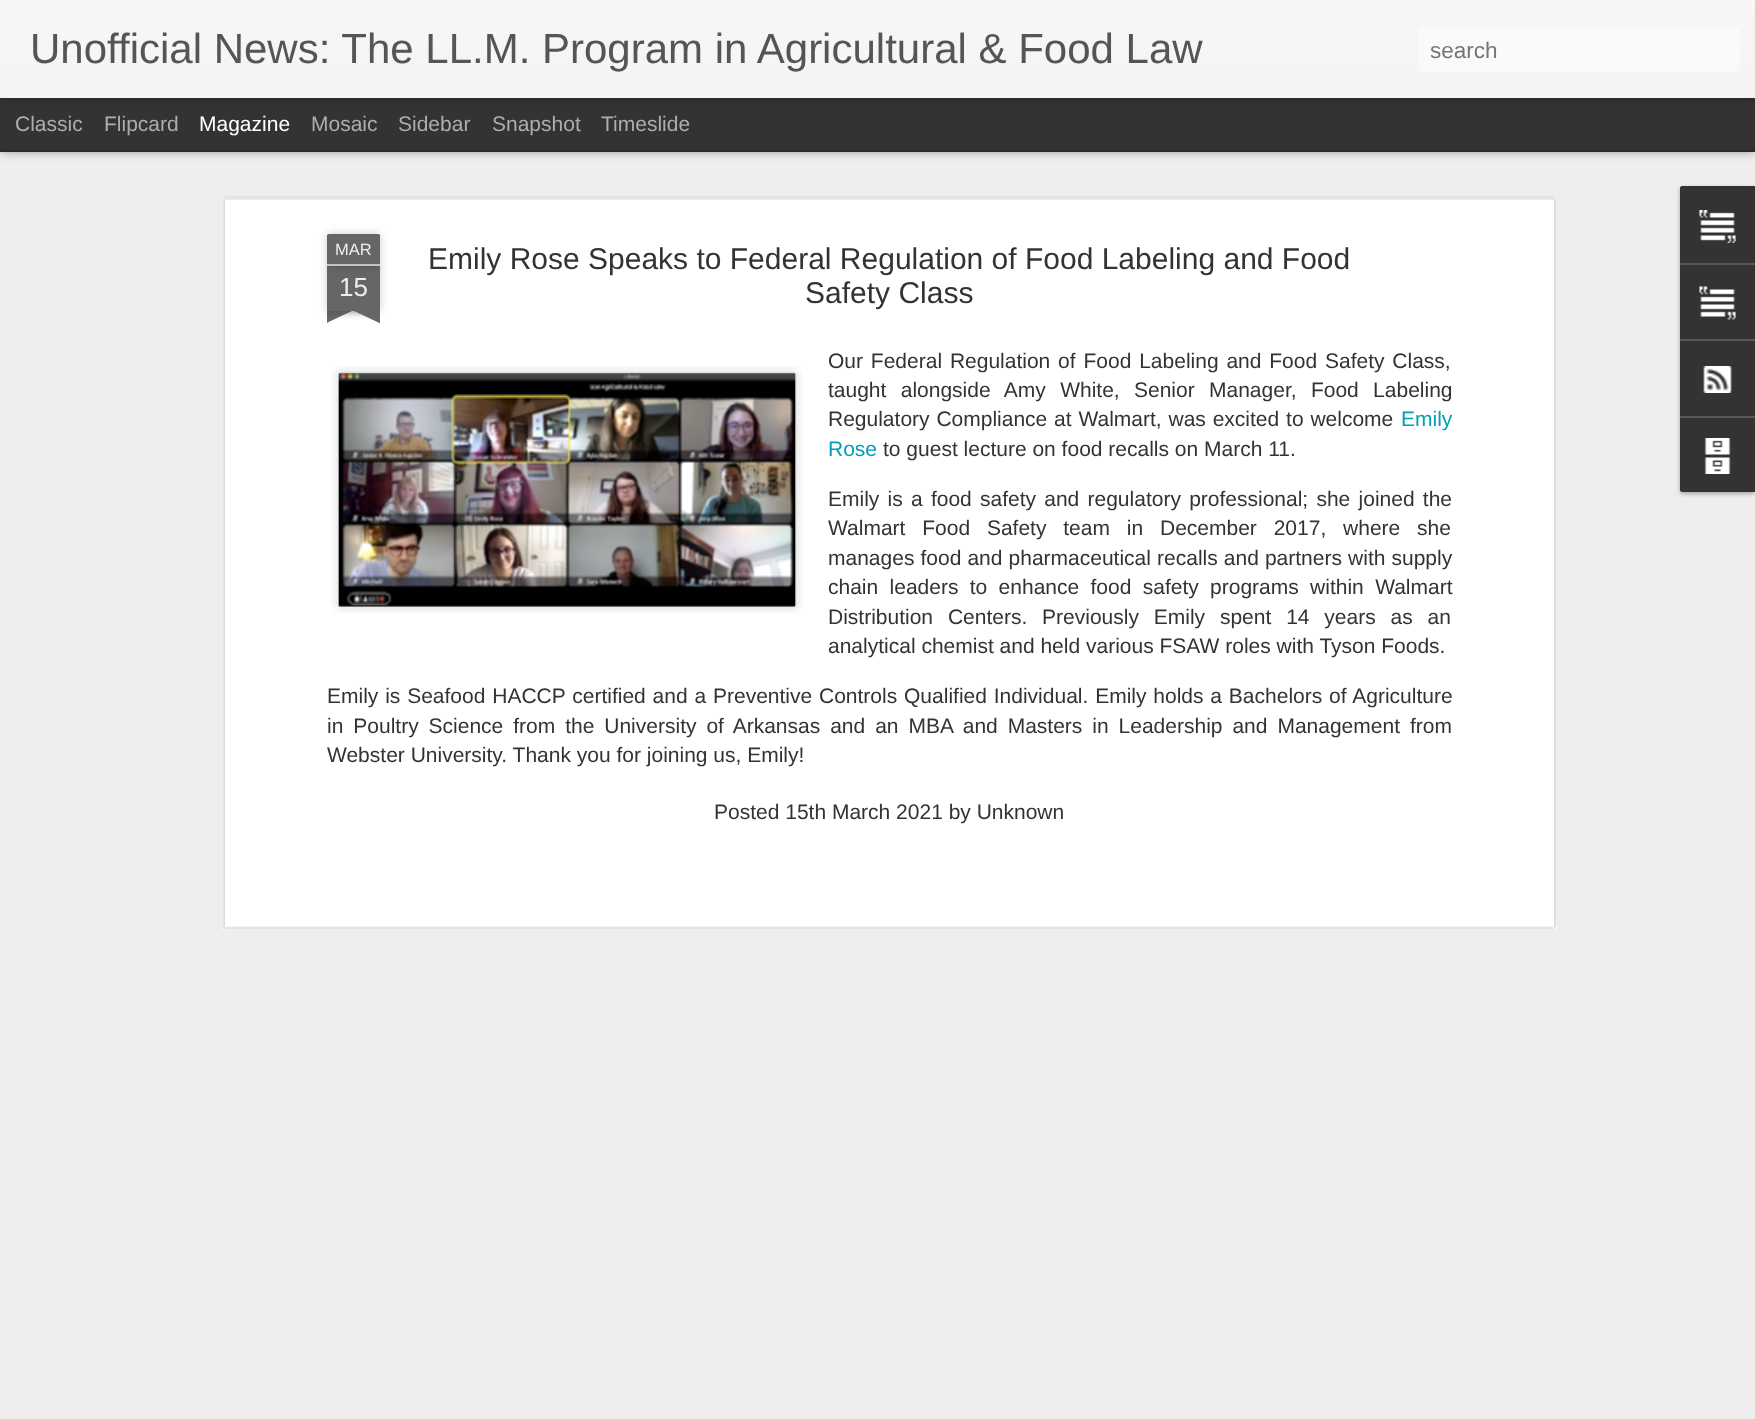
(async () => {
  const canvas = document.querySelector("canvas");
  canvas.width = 1755;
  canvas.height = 1419;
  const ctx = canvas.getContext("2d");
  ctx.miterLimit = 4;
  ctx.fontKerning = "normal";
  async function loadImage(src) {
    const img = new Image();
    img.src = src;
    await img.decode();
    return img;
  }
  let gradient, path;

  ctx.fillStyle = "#333333";
  ctx.fillRect(0, 0, 1755, 1419);
  ctx.fillStyle = "#eeeeee";
  ctx.fillRect(0, 152, 1755, 1267);
  ctx.fillStyle = "rgba(0, 0, 0, 0.5)";
  ctx.filter = "blur(6px)";
  ctx.beginPath();
  ctx.rect(0, 98, 1755, 52);
  ctx.fill();
  ctx.filter = "none";
  ctx.fillStyle = "#333333";
  ctx.fillRect(0, 98, 1755, 52);
  ctx.fillStyle = "rgba(0, 0, 0, 0.3)";
  ctx.filter = "blur(4px)";
  ctx.beginPath();
  ctx.rect(0, 0, 1755, 98);
  ctx.fill();
  ctx.filter = "none";
  gradient = ctx.createLinearGradient(0, 0, 0, 98);
  gradient.addColorStop(0, "#f7f7f7");
  gradient.addColorStop(1, "#f4f4f4");
  ctx.fillStyle = gradient;
  ctx.fillRect(0, 0, 1755, 98);
  ctx.fillStyle = "#fafafa";
  ctx.beginPath();
  ctx.roundRect(1419, 27, 321, 45, 5);
  ctx.fill();
  ctx.fillStyle = "#ffffff";
  ctx.fillRect(222, 197, 1335, 733);
  ctx.drawImage(await loadImage("img/1.png"), 222, 196, 1335, 734);
  ctx.fillStyle = "rgba(0, 0, 0, 0.2)";
  ctx.filter = "blur(4px)";
  ctx.beginPath();
  ctx.rect(327, 266, 53, 45);
  ctx.fill();
  ctx.filter = "none";
  ctx.fillStyle = "#666666";
  ctx.fillRect(327, 266, 53, 45);
  ctx.fillStyle = "rgba(0, 0, 0, 0.2)";
  ctx.filter = "blur(4px)";
  ctx.beginPath();
  ctx.roundRect(327, 234, 53, 32, 1.5);
  ctx.fill();
  ctx.filter = "none";
  ctx.fillStyle = "#666666";
  ctx.beginPath();
  ctx.roundRect(327, 234, 53, 32, [1.5, 1.5, 0, 0]);
  ctx.fill();
  ctx.fillStyle = "#c2c2c2";
  ctx.fillRect(327, 264, 53, 2);
  ctx.save();
  ctx.beginPath();
  ctx.rect(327, 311, 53, 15);
  ctx.clip();
  ctx.fillStyle = "rgba(0, 0, 0, 0.2)";
  ctx.filter = "blur(4px)";
  ctx.beginPath();
  ctx.rect(314, 296, 75, 15);
  ctx.fill();
  ctx.filter = "none";
  ctx.restore();
  ctx.save();
  ctx.beginPath();
  ctx.rect(327, 311, 53, 15);
  ctx.clip();
  ctx.fillStyle = "#666666";
  path = new Path2D("M314 312L382 280L388 294L320 326Z");
  ctx.fill(path);
  ctx.restore();
  ctx.save();
  ctx.beginPath();
  ctx.rect(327, 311, 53, 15);
  ctx.clip();
  ctx.fillStyle = "rgba(0, 0, 0, 0.2)";
  ctx.filter = "blur(4px)";
  ctx.beginPath();
  ctx.rect(318, 296, 75, 15);
  ctx.fill();
  ctx.filter = "none";
  ctx.restore();
  ctx.save();
  ctx.beginPath();
  ctx.rect(327, 311, 53, 15);
  ctx.clip();
  ctx.fillStyle = "#666666";
  path = new Path2D("M325 280L393 312L386 326L318 294Z");
  ctx.fill(path);
  ctx.restore();
  ctx.drawImage(await loadImage("img/2.png"), 331, 366, 472, 247);
  ctx.drawImage(await loadImage("img/3.png"), 338, 372, 459, 235);
  ctx.fillStyle = "rgba(0, 0, 0, 0.3)";
  ctx.filter = "blur(2px)";
  ctx.beginPath();
  ctx.roundRect(1680, 188, 75, 306, 3);
  ctx.fill();
  ctx.filter = "none";
  ctx.fillStyle = "#333333";
  ctx.beginPath();
  ctx.roundRect(1680, 186, 75, 306, [3, 0, 0, 3]);
  ctx.fill();
  ctx.beginPath();
  ctx.roundRect(1680, 186, 75, 77, [3, 0, 0, 0]);
  ctx.fill();
  ctx.drawImage(await loadImage("img/4.png"), 1699, 210, 37, 33);
  ctx.fillStyle = "#585858";
  ctx.fillRect(1680, 263, 75, 2);
  ctx.drawImage(await loadImage("img/5.png"), 1699, 286, 37, 34);
  ctx.fillRect(1680, 339, 75, 2);
  ctx.drawImage(await loadImage("img/6.png"), 1703, 366, 29, 27);
  ctx.fillStyle = "#333333";
  ctx.beginPath();
  ctx.roundRect(1680, 416, 75, 76, [0, 0, 0, 3]);
  ctx.fill();
  ctx.fillStyle = "#585858";
  ctx.fillRect(1680, 416, 75, 2);
  ctx.drawImage(await loadImage("img/7.png"), 1704, 438, 27, 36);
  ctx.font = "42px Liberation Sans";
  ctx.fillStyle = "#555555";
  ctx.fillText("Unofficial News: The LL.M. Program in Agricultural & Food Law", 30, 63);
  ctx.font = "22.5px Liberation Sans";
  ctx.fillStyle = "#757575";
  ctx.fillText("search", 1430, 58);
  ctx.font = "21px Liberation Sans";
  ctx.fillStyle = "#adadad";
  ctx.fillText("Classic", 15, 131);
  ctx.fillText("Flipcard", 104, 131);
  ctx.fillStyle = "#ffffff";
  ctx.fillText("Magazine", 199, 131);
  ctx.fillStyle = "#adadad";
  for (const [text, x, y] of [
    ["Mosaic", 311, 131],
    ["Sidebar", 398, 131],
    ["Snapshot", 492, 131],
    ["Timeslide", 601, 131],
  ]) {
    ctx.fillText(text, x, y);
  }
  ctx.font = "16.5px Liberation Sans";
  ctx.fillStyle = "#eeeeee";
  ctx.fillText("MAR", 335, 255);
  ctx.font = "26px Liberation Sans";
  ctx.fillText("15", 339, 296);
  ctx.font = "30px Liberation Sans";
  ctx.fillStyle = "#333333";
  ctx.fillText("Emily Rose Speaks to Federal Regulation of Food Labeling and Food", 428, 269);
  ctx.fillText("Safety Class", 805, 303);
  ctx.wordSpacing = "2px";
  ctx.font = "21px Liberation Sans";
  ctx.fillText("Our Federal Regulation of Food Labeling and Food Safety Class,", 828, 368);
  ctx.wordSpacing = "8.5px";
  ctx.fillText("taught alongside Amy White, Senior Manager, Food Labeling", 828, 397);
  ctx.wordSpacing = "1px";
  ctx.fillText("Regulatory Compliance at Walmart, was excited to welcome", 828, 426);
  ctx.wordSpacing = "0px";
  ctx.fillStyle = "#009eb8";
  ctx.fillText("Emily", 1401, 426);
  ctx.fillText("Rose", 828, 456);
  ctx.fillStyle = "#333333";
  ctx.fillText("to guest lecture on food recalls on March 11.", 883, 456);
  ctx.wordSpacing = "2.4px";
  ctx.fillText("Emily is a food safety and regulatory professional; she joined the", 828, 506);
  ctx.wordSpacing = "11px";
  ctx.fillText("Walmart Food Safety team in December 2017, where she", 828, 535);
  ctx.wordSpacing = "0.25px";
  ctx.fillText("manages food and pharmaceutical recalls and partners with supply", 828, 565);
  ctx.wordSpacing = "5.5px";
  ctx.fillText("chain leaders to enhance food safety programs within Walmart", 828, 594);
  ctx.wordSpacing = "9px";
  ctx.fillText("Distribution Centers. Previously Emily spent 14 years as an", 828, 624);
  ctx.wordSpacing = "0px";
  ctx.fillText("analytical chemist and held various FSAW roles with Tyson Foods.", 828, 653);
  ctx.wordSpacing = "1px";
  ctx.fillText("Emily is Seafood HACCP certified and a Preventive Controls Qualified Individual. Emily holds a Bachelors of Agriculture", 327, 703);
  ctx.wordSpacing = "4.1px";
  ctx.fillText("in Poultry Science from the University of Arkansas and an MBA and Masters in Leadership and Management from", 327, 733);
  ctx.wordSpacing = "0px";
  ctx.fillText("Webster University. Thank you for joining us, Emily!", 327, 762);
  ctx.fillText("Posted 15th March 2021 by Unknown", 714, 819);
})();
